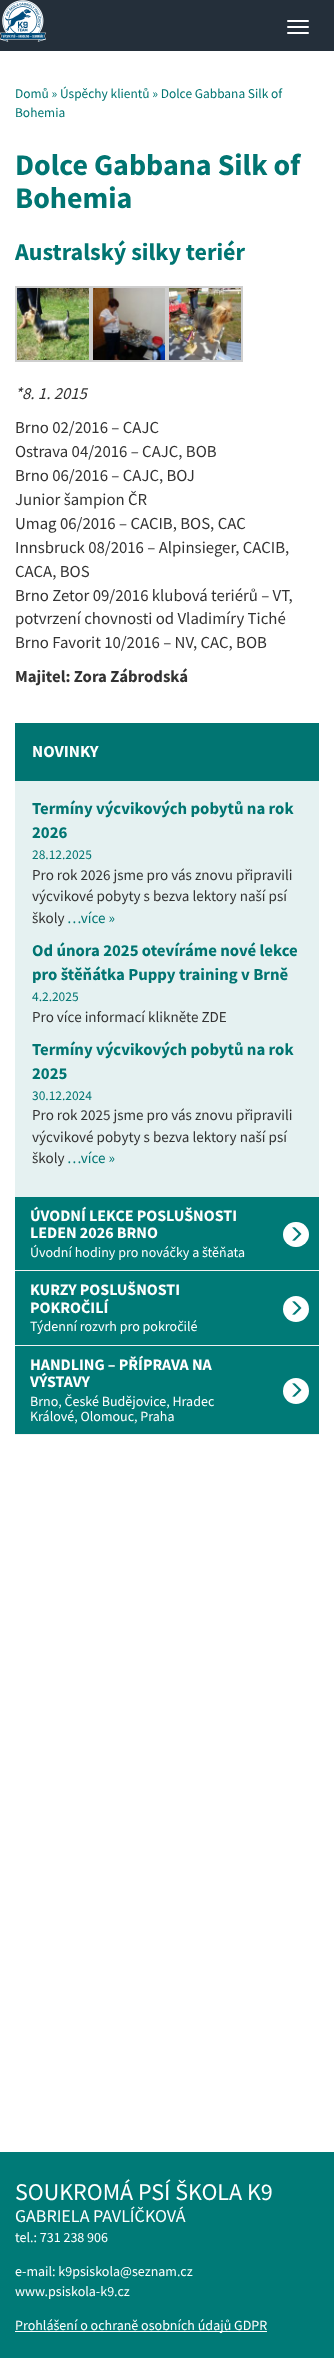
(async () => {
  const canvas = document.querySelector("canvas");
  canvas.width = 334;
  canvas.height = 2358;
  const ctx = canvas.getContext("2d");
  ctx.miterLimit = 4;
  ctx.fontKerning = "normal";
  async function loadImage(src) {
    const img = new Image();
    img.src = src;
    await img.decode();
    return img;
  }

  ctx.fillStyle = "#ffffff";
  ctx.fillRect(0, 0, 334, 2358);
  ctx.fillStyle = "#242f3a";
  ctx.fillRect(0, 0, 334, 51);
  ctx.drawImage(await loadImage("img/1.png"), 0, 0, 46, 42);
  ctx.fillStyle = "#ffffff";
  ctx.beginPath();
  ctx.roundRect(287, 20, 22, 2, 1);
  ctx.fill();
  ctx.beginPath();
  ctx.roundRect(287, 26, 22, 2, 1);
  ctx.fill();
  ctx.beginPath();
  ctx.roundRect(287, 32, 22, 2, 1);
  ctx.fill();
  ctx.strokeStyle = "#cfcfcf";
  ctx.lineWidth = 2;
  ctx.strokeRect(16, 287, 74, 74);
  ctx.drawImage(await loadImage("img/2.png"), 17, 288, 72, 72);
  ctx.strokeRect(92, 287, 74, 74);
  ctx.drawImage(await loadImage("img/3.png"), 93, 288, 72, 72);
  ctx.strokeRect(168, 287, 74, 74);
  ctx.drawImage(await loadImage("img/4.png"), 169, 288, 72, 72);
  ctx.fillStyle = "#017572";
  ctx.fillRect(15, 723, 304, 58);
  ctx.fillStyle = "#e5f1f1";
  ctx.fillRect(15, 781, 304, 416);
  ctx.fillStyle = "rgba(0, 0, 0, 0.05)";
  ctx.filter = "blur(0.5px)";
  ctx.beginPath();
  ctx.rect(15, 1198, 304, 73);
  ctx.fill();
  ctx.filter = "none";
  ctx.fillStyle = "#007a77";
  ctx.fillRect(15, 1197, 304, 73);
  ctx.fillStyle = "#ffffff";
  ctx.beginPath();
  ctx.roundRect(283, 1222, 26, 25, 12.5);
  ctx.fill();
  ctx.drawImage(await loadImage("img/5.png"), 292, 1227, 10, 14);
  ctx.fillStyle = "rgba(0, 0, 0, 0.05)";
  ctx.filter = "blur(0.5px)";
  ctx.beginPath();
  ctx.rect(15, 1272, 304, 74);
  ctx.fill();
  ctx.filter = "none";
  ctx.fillStyle = "#007a77";
  ctx.fillRect(15, 1271, 304, 74);
  ctx.fillStyle = "#ffffff";
  ctx.beginPath();
  ctx.arc(296, 1309, 13, 0, Math.PI * 2);
  ctx.fill();
  ctx.drawImage(await loadImage("img/5.png"), 292, 1301, 10, 14);
  ctx.fillStyle = "rgba(0, 0, 0, 0.05)";
  ctx.filter = "blur(0.5px)";
  ctx.beginPath();
  ctx.rect(15, 1347, 304, 88);
  ctx.fill();
  ctx.filter = "none";
  ctx.fillStyle = "#007a77";
  ctx.fillRect(15, 1346, 304, 88);
  ctx.fillStyle = "#ffffff";
  ctx.beginPath();
  ctx.arc(296, 1391, 13, 0, Math.PI * 2);
  ctx.fill();
  ctx.drawImage(await loadImage("img/5.png"), 292, 1383, 10, 14);
  ctx.fillStyle = "#007a77";
  ctx.fillRect(0, 2152, 334, 206);
  ctx.fillStyle = "#ffffff";
  ctx.fillRect(15, 2331, 252, 1);
  ctx.font = "13.4px Source Sans Pro";
  ctx.fillStyle = "#017572";
  ctx.fillText("Domů » Úspěchy klientů » Dolce Gabbana Silk of", 15, 98);
  ctx.fillText("Bohemia", 15, 117);
  ctx.font = "bold 30px Source Sans Pro";
  ctx.fillText("Dolce Gabbana Silk of", 15, 175);
  ctx.fillText("Bohemia", 15, 208);
  ctx.font = "bold 24px Source Sans Pro";
  ctx.fillText("Australský silky teriér", 15, 260);
  ctx.font = "italic 16.75px Source Sans Pro";
  ctx.fillStyle = "#333333";
  ctx.fillText("*8. 1. 2015", 15, 399);
  ctx.font = "16.75px Source Sans Pro";
  for (const [text, x, y] of [
    ["Brno 02/2016 – CAJC", 15, 433],
    ["Ostrava 04/2016 – CAJC, BOB", 15, 457],
    ["Brno 06/2016 – CAJC, BOJ", 15, 481],
    ["Junior šampion ČR", 15, 505],
    ["Umag 06/2016 – CACIB, BOS, CAC", 15, 529],
    ["Innsbruck 08/2016 – Alpinsieger, CACIB,", 15, 553],
    ["CACA, BOS", 15, 577],
    ["Brno Zetor 09/2016 klubová teriérů – VT,", 15, 601],
    ["potvrzení chovnosti od Vladimíry Tiché", 15, 624],
    ["Brno Favorit 10/2016 – NV, CAC, BOB", 15, 648],
  ]) {
    ctx.fillText(text, x, y);
  }
  ctx.font = "bold 16.75px Source Sans Pro";
  ctx.fillText("Majitel: Zora Zábrodská", 15, 682);
  ctx.fillStyle = "#ffffff";
  ctx.fillText("NOVINKY", 32, 757);
  ctx.fillStyle = "#017572";
  ctx.fillText("Termíny výcvikových pobytů na rok", 32, 814);
  ctx.fillText("2026", 32, 838);
  ctx.font = "13.4px Source Sans Pro";
  ctx.fillText("28.12.2025", 32, 859);
  ctx.font = "15.1px Source Sans Pro";
  ctx.fillStyle = "#333333";
  for (const [text, x, y] of [
    ["Pro rok 2026 jsme pro vás znovu připravili", 32, 880],
    ["výcvikové pobyty s bezva lektory naší psí", 32, 901],
    ["školy", 32, 923],
  ]) {
    ctx.fillText(text, x, y);
  }
  ctx.fillStyle = "#017572";
  ctx.fillText("…více »", 67, 923);
  ctx.font = "bold 16.75px Source Sans Pro";
  ctx.fillText("Od února 2025 otevíráme nové lekce", 32, 956);
  ctx.fillText("pro štěňátka Puppy training v Brně", 32, 980);
  ctx.font = "13.4px Source Sans Pro";
  ctx.fillText("4.2.2025", 32, 1001);
  ctx.font = "15.1px Source Sans Pro";
  ctx.fillStyle = "#333333";
  ctx.fillText("Pro více informací klikněte ZDE", 32, 1022);
  ctx.font = "bold 16.75px Source Sans Pro";
  ctx.fillStyle = "#017572";
  ctx.fillText("Termíny výcvikových pobytů na rok", 32, 1055);
  ctx.fillText("2025", 32, 1079);
  ctx.font = "13.4px Source Sans Pro";
  ctx.fillText("30.12.2024", 32, 1100);
  ctx.font = "15.1px Source Sans Pro";
  ctx.fillStyle = "#333333";
  for (const [text, x, y] of [
    ["Pro rok 2025 jsme pro vás znovu připravili", 32, 1120],
    ["výcvikové pobyty s bezva lektory naší psí", 32, 1142],
    ["školy", 32, 1163],
  ]) {
    ctx.fillText(text, x, y);
  }
  ctx.fillStyle = "#017572";
  ctx.fillText("…více »", 67, 1163);
  ctx.font = "bold 16px Source Sans Pro";
  ctx.fillStyle = "#ffffff";
  ctx.fillText("ÚVODNÍ LEKCE POSLUŠNOSTI", 30, 1221);
  ctx.fillText("LEDEN 2026 BRNO", 30, 1238);
  ctx.font = "14px Source Sans Pro";
  ctx.fillText("Úvodní hodiny pro nováčky a štěňata", 30, 1257);
  ctx.font = "bold 16px Source Sans Pro";
  ctx.fillText("KURZY POSLUŠNOSTI", 30, 1295);
  ctx.fillText("POKROČILÍ", 30, 1313);
  ctx.font = "14px Source Sans Pro";
  ctx.fillText("Týdenní rozvrh pro pokročilé", 30, 1331);
  ctx.font = "bold 16px Source Sans Pro";
  ctx.fillText("HANDLING – PŘÍPRAVA NA", 30, 1370);
  ctx.fillText("VÝSTAVY", 30, 1387);
  ctx.font = "14px Source Sans Pro";
  ctx.fillText("Brno, České Budějovice, Hradec", 30, 1406);
  ctx.fillText("Králové, Olomouc, Praha", 30, 1421);
  ctx.font = "24px Source Sans Pro";
  ctx.fillText("SOUKROMÁ PSÍ ŠKOLA K9", 15, 2200);
  ctx.font = "18px Source Sans Pro";
  ctx.fillText("GABRIELA PAVLÍČKOVÁ", 15, 2222);
  ctx.font = "14px Source Sans Pro";
  for (const [text, x, y] of [
    ["tel.: 731 238 906", 15, 2242],
    ["e-mail: k9psiskola@seznam.cz", 15, 2276],
    ["www.psiskola-k9.cz", 15, 2296],
    ["Prohlášení o ochraně osobních údajů GDPR", 15, 2330],
  ]) {
    ctx.fillText(text, x, y);
  }
})();
